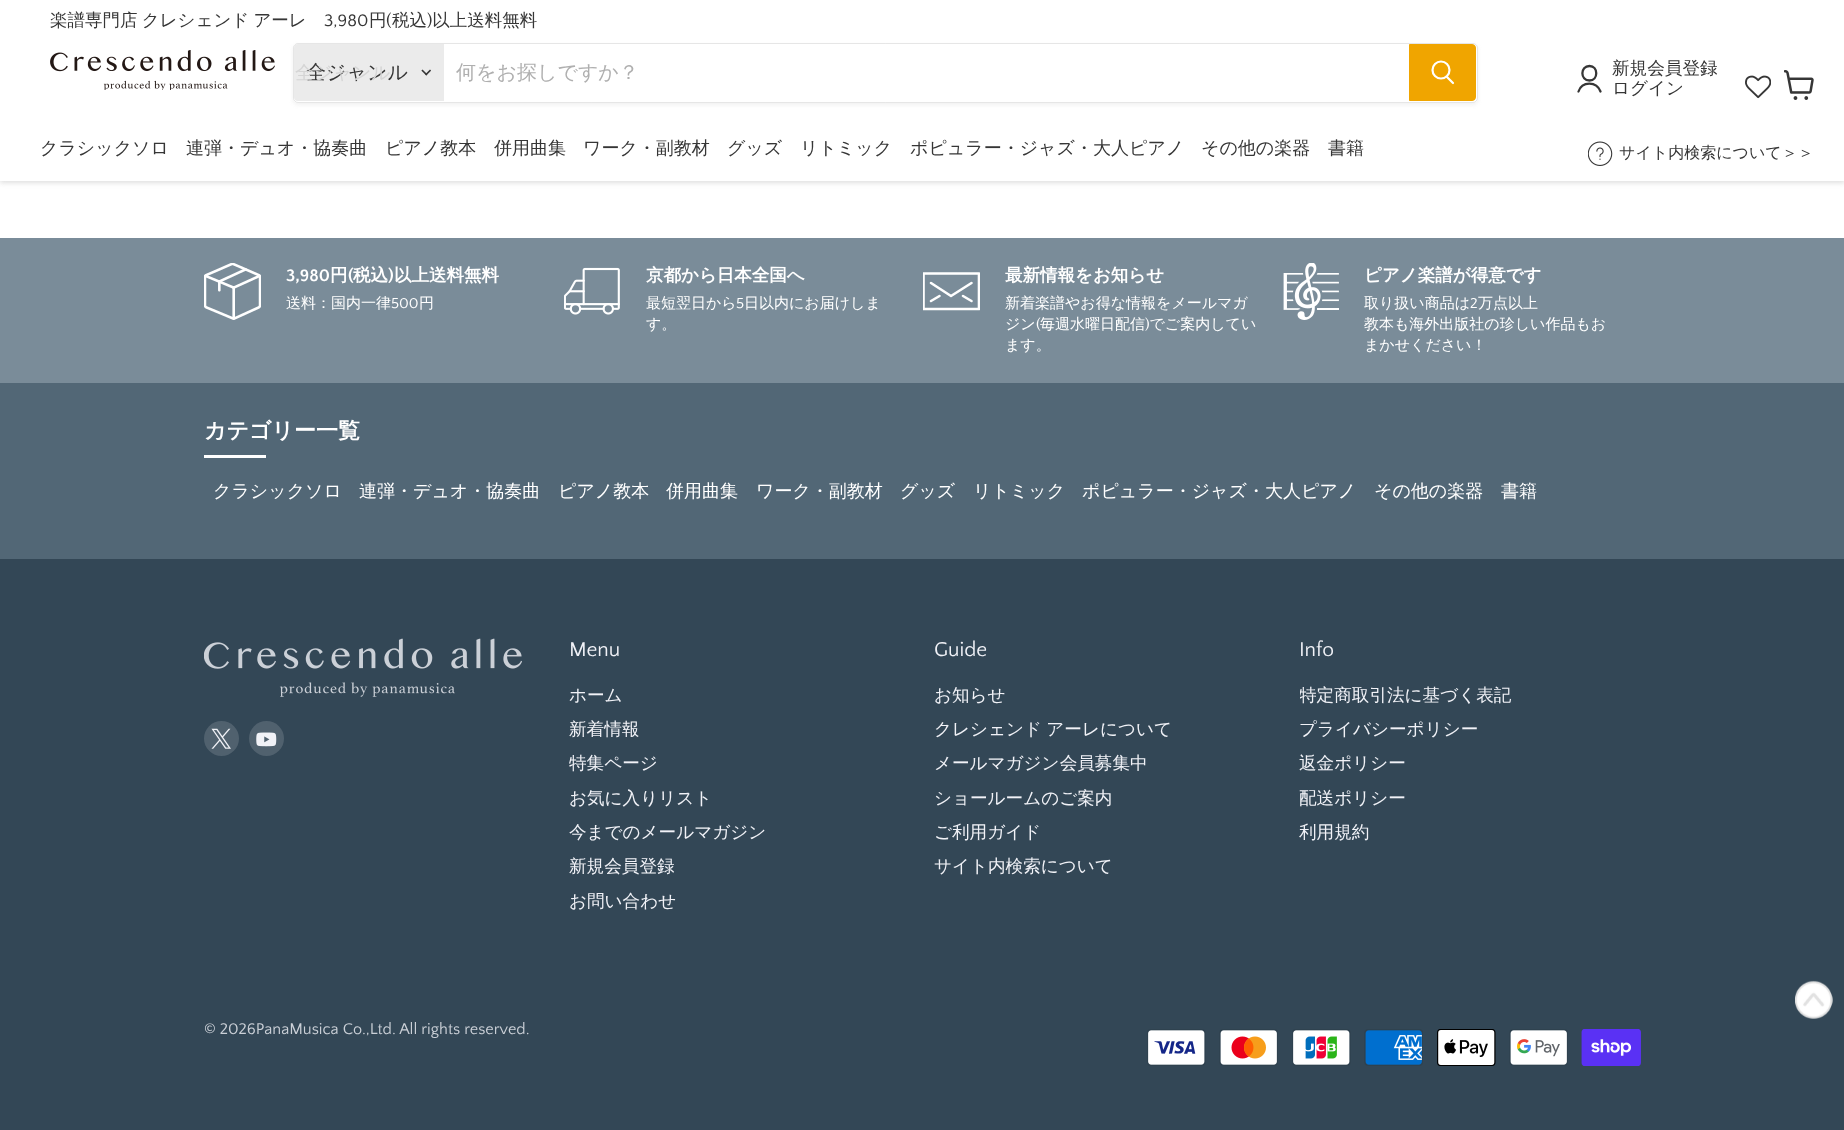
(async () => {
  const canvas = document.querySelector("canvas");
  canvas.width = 1844;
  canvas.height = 1130;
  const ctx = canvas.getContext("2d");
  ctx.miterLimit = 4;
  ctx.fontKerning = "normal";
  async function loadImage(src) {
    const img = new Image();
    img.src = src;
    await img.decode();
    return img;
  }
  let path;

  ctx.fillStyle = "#ffffff";
  ctx.fillRect(0, 0, 1844, 1130);
  ctx.fillStyle = "rgba(128, 128, 128, 0.25)";
  ctx.filter = "blur(2.5px)";
  ctx.beginPath();
  ctx.rect(0, 0, 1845, 183);
  ctx.fill();
  ctx.filter = "none";
  ctx.fillStyle = "#ffffff";
  ctx.fillRect(0, 0, 1844, 181);
  ctx.drawImage(await loadImage("img/1.png"), 50, 50, 225, 40);
  ctx.save();
  path = new Path2D("M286 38H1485V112H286ZM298 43H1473C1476 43 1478 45 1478 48V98C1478 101 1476 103 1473 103H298C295 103 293 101 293 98V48C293 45 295 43 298 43Z");
  ctx.clip(path, "evenodd");
  ctx.fillStyle = "rgba(128, 128, 128, 0.11)";
  ctx.filter = "blur(2px)";
  ctx.beginPath();
  ctx.roundRect(293, 45, 1185, 60, 5);
  ctx.fill();
  ctx.filter = "none";
  ctx.restore();
  ctx.beginPath();
  ctx.roundRect(293.5, 43.5, 1184, 59, 4.5);
  ctx.strokeStyle = "rgba(128, 128, 128, 0.2)";
  ctx.stroke();
  ctx.fillStyle = "#ebebeb";
  ctx.beginPath();
  ctx.roundRect(294, 44, 150, 57, [4, 0, 0, 4]);
  ctx.fill();
  ctx.drawImage(await loadImage("img/2.png"), 421, 69, 10, 7);
  ctx.fillStyle = "#f0a500";
  ctx.beginPath();
  ctx.roundRect(1409.5, 44.5, 66, 56, [0, 3.5, 3.5, 0]);
  ctx.fill();
  ctx.strokeStyle = "#f0a500";
  ctx.stroke();
  path = new Path2D("M1453 83L1447 77");
  ctx.strokeStyle = "#ffffff";
  ctx.lineWidth = 2.2;
  ctx.lineCap = "round";
  ctx.stroke(path);
  ctx.beginPath();
  ctx.arc(1441, 70, 8.5, 0, Math.PI * 2);
  ctx.stroke();
  path = new Path2D("M1589.5 80.5C1598.5 80.5 1598.5 66 1589.5 66C1580 66 1580 80.5 1589.5 80.5ZM1600.5 91.5C1596.5 81 1582 81 1578.5 91.5");
  ctx.strokeStyle = "#363636";
  ctx.lineWidth = 2.3;
  ctx.lineJoin = "round";
  ctx.stroke(path);
  ctx.drawImage(await loadImage("img/3.png"), 1745, 75, 26, 24);
  ctx.drawImage(await loadImage("img/4.png"), 1784, 70, 30, 30);
  ctx.drawImage(await loadImage("img/5.png"), 1588, 141, 25, 25);
  ctx.fillStyle = "#7a8c99";
  ctx.fillRect(0, 238, 1844, 145);
  ctx.drawImage(await loadImage("img/6.png"), 204, 263, 57, 57);
  ctx.drawImage(await loadImage("img/7.png"), 564, 267, 56, 48);
  ctx.save();
  ctx.beginPath();
  ctx.rect(923, 263, 57, 57);
  ctx.clip();
  path = new Path2D("M923.5 273.5H979V309H923.5Z");
  ctx.strokeStyle = "#ffffff";
  ctx.lineWidth = 2.6;
  ctx.stroke(path);
  ctx.restore();
  path = new Path2D("M971.5 283L951 296L931 283M931 301L939.5 296M971.5 301L963 296");
  ctx.strokeStyle = "#ffffff";
  ctx.lineWidth = 2.6;
  ctx.stroke(path);
  ctx.drawImage(await loadImage("img/8.png"), 1283, 263, 56, 57);
  for (const [x, y, w, h, color] of [
    [0, 383, 1844, 176, "#526776"],
    [204, 455, 62, 3, "#ffffff"],
    [0, 559, 1844, 571, "#334756"],
  ]) {
    ctx.fillStyle = color;
    ctx.fillRect(x, y, w, h);
  }
  ctx.drawImage(await loadImage("img/9.png"), 204, 638, 318, 59);
  ctx.fillStyle = "#50616e";
  ctx.beginPath();
  ctx.arc(221.5, 738.5, 17.5, 0, Math.PI * 2);
  ctx.fill();
  ctx.drawImage(await loadImage("img/10.png"), 211, 728, 20, 21);
  ctx.beginPath();
  ctx.arc(266.5, 738.5, 17.5, 0, Math.PI * 2);
  ctx.fill();
  ctx.drawImage(await loadImage("img/11.png"), 256, 732, 21, 15);
  ctx.drawImage(await loadImage("img/12.png"), 1147, 1029, 59, 37);
  ctx.drawImage(await loadImage("img/13.png"), 1219, 1029, 59, 37);
  ctx.drawImage(await loadImage("img/14.png"), 1292, 1029, 59, 37);
  ctx.drawImage(await loadImage("img/15.png"), 1364, 1029, 59, 37);
  ctx.drawImage(await loadImage("img/16.png"), 1437, 1029, 59, 37);
  ctx.drawImage(await loadImage("img/17.png"), 1509, 1029, 59, 37);
  ctx.drawImage(await loadImage("img/18.png"), 1581, 1029, 60, 37);
  ctx.drawImage(await loadImage("img/19.png"), 1795, 980, 38, 39);
  ctx.wordSpacing = "-1px";
  ctx.font = "500 17.5px WenQuanYi Zen Hei";
  ctx.fillStyle = "#363636";
  ctx.fillText("楽譜専門店 クレシェンド アーレ", 50, 26);
  ctx.wordSpacing = "0px";
  ctx.fillText("円", 369, 26);
  ctx.font = "17.5px Quattrocento Sans";
  ctx.fillText("(", 386, 26);
  ctx.font = "500 17.5px WenQuanYi Zen Hei";
  ctx.fillText("税込 以上送料無料", 392, 26);
  ctx.font = "17.5px Quattrocento Sans";
  ctx.fillText("3,980", 324, 26);
  ctx.fillText(")", 427, 26);
  ctx.font = "500 20px WenQuanYi Zen Hei";
  ctx.fillText("全ジャンル", 306, 79);
  ctx.font = "500 18.75px WenQuanYi Zen Hei";
  ctx.fillStyle = "#d5d5d5";
  ctx.fillText("全ジャンル", 295, 79);
  ctx.font = "500 20px WenQuanYi Zen Hei";
  ctx.fillStyle = "#afafaf";
  ctx.fillText("何をお探しですか？", 456, 79);
  ctx.font = "500 17.6px WenQuanYi Zen Hei";
  ctx.fillStyle = "#363636";
  ctx.fillText("新規会員登録", 1612, 74);
  ctx.fillText("ログイン", 1612, 94);
  ctx.font = "500 18px WenQuanYi Zen Hei";
  for (const [text, x, y] of [
    ["クラシックソロ", 40, 154],
    ["連弾・デュオ・協奏曲", 186, 154],
    ["ピアノ教本", 385, 154],
    ["併用曲集", 494, 154],
    ["ワーク・副教材", 583, 154],
    ["グッズ", 727, 154],
    ["リトミック", 800, 154],
    ["ポピュラー・ジャズ・大人ピアノ", 910, 154],
    ["その他の楽器", 1201, 154],
    ["書籍", 1328, 154],
  ]) {
    ctx.fillText(text, x, y);
  }
  ctx.font = "500 16px WenQuanYi Zen Hei";
  ctx.fillText("サイト内検索について＞＞", 1619, 158);
  ctx.font = "bold 17.5px Quattrocento Sans";
  ctx.fillStyle = "#ffffff";
  ctx.fillText("3,980", 286, 281);
  ctx.font = "bold 17.5px WenQuanYi Zen Hei";
  ctx.fillText("円", 330, 281);
  ctx.font = "bold 17.5px Quattrocento Sans";
  ctx.fillText("(", 348, 281);
  ctx.font = "bold 17.5px WenQuanYi Zen Hei";
  ctx.fillText("税込", 353, 281);
  ctx.font = "bold 17.5px Quattrocento Sans";
  ctx.fillText(")", 388, 281);
  ctx.font = "bold 17.5px WenQuanYi Zen Hei";
  ctx.fillText("以上送料無料", 394, 281);
  ctx.font = "500 15px WenQuanYi Zen Hei";
  ctx.fillText("送料：国内一律", 286, 308);
  ctx.font = "15px Quattrocento Sans";
  ctx.fillText("500", 391, 308);
  ctx.font = "500 15px WenQuanYi Zen Hei";
  ctx.fillText("円", 419, 308);
  ctx.font = "bold 17.5px WenQuanYi Zen Hei";
  ctx.fillText("京都から日本全国へ", 646, 281);
  ctx.font = "500 15px WenQuanYi Zen Hei";
  ctx.fillText("最短翌日から", 646, 308);
  ctx.font = "15px Quattrocento Sans";
  ctx.fillText("5", 736, 308);
  ctx.font = "500 15px WenQuanYi Zen Hei";
  ctx.fillText("日以内にお届けしま", 744, 308);
  ctx.fillText("す。", 646, 329);
  ctx.font = "bold 17.5px WenQuanYi Zen Hei";
  ctx.fillText("最新情報をお知らせ", 1005, 281);
  ctx.font = "500 15px WenQuanYi Zen Hei";
  ctx.fillText("新着楽譜やお得な情報をメールマガ", 1005, 308);
  ctx.font = "15px Quattrocento Sans";
  ctx.fillText("(", 1036, 329);
  ctx.font = "500 15px WenQuanYi Zen Hei";
  ctx.fillText("毎週水曜日配信 でご案内してい", 1040, 329);
  ctx.fillText("ジン", 1005, 329);
  ctx.font = "15px Quattrocento Sans";
  ctx.fillText(")", 1145, 329);
  ctx.font = "500 15px WenQuanYi Zen Hei";
  ctx.fillText("ます。", 1005, 350);
  ctx.font = "bold 17.5px WenQuanYi Zen Hei";
  ctx.fillText("ピアノ楽譜が得意です", 1364, 281);
  ctx.font = "500 15px WenQuanYi Zen Hei";
  ctx.fillText("取り扱い商品は", 1364, 308);
  ctx.font = "15px Quattrocento Sans";
  ctx.fillText("2", 1470, 308);
  ctx.font = "500 15px WenQuanYi Zen Hei";
  for (const [text, x, y] of [
    ["万点以上", 1478, 308],
    ["教本も海外出版社の珍しい作品もお", 1364, 329],
    ["まかせください！", 1364, 350],
  ]) {
    ctx.fillText(text, x, y);
  }
  ctx.font = "bold 22px WenQuanYi Zen Hei";
  ctx.fillText("カテゴリー一覧", 204, 438);
  ctx.font = "500 18px WenQuanYi Zen Hei";
  for (const [text, x, y] of [
    ["クラシックソロ", 213, 497],
    ["連弾・デュオ・協奏曲", 359, 497],
    ["ピアノ教本", 558, 497],
    ["併用曲集", 666, 497],
    ["ワーク・副教材", 756, 497],
    ["グッズ", 900, 497],
    ["リトミック", 973, 497],
    ["ポピュラー・ジャズ・大人ピアノ", 1082, 497],
    ["その他の楽器", 1374, 497],
    ["書籍", 1501, 497],
  ]) {
    ctx.fillText(text, x, y);
  }
  ctx.font = "21px Quattrocento Sans";
  ctx.fillStyle = "#f1f2f7";
  ctx.fillText("Menu", 569, 656);
  ctx.font = "500 17.6px WenQuanYi Zen Hei";
  for (const [text, x, y] of [
    ["ホーム", 569, 701],
    ["新着情報", 569, 735],
    ["特集ページ", 569, 769],
    ["お気に入りリスト", 569, 804],
    ["今までのメールマガジン", 569, 838],
    ["新規会員登録", 569, 872],
    ["お問い合わせ", 569, 907],
  ]) {
    ctx.fillText(text, x, y);
  }
  ctx.font = "21px Quattrocento Sans";
  ctx.fillText("Guide", 934, 656);
  ctx.font = "500 17.6px WenQuanYi Zen Hei";
  ctx.fillText("お知らせ", 934, 701);
  ctx.wordSpacing = "-1px";
  ctx.fillText("クレシェンド アーレについて", 934, 735);
  ctx.wordSpacing = "0px";
  for (const [text, x, y] of [
    ["メールマガジン会員募集中", 934, 769],
    ["ショールームのご案内", 934, 804],
    ["ご利用ガイド", 934, 838],
    ["サイト内検索について", 934, 872],
  ]) {
    ctx.fillText(text, x, y);
  }
  ctx.font = "21px Quattrocento Sans";
  ctx.fillText("Info", 1299, 656);
  ctx.save();
  ctx.beginPath();
  ctx.rect(1300, 681, 341, 167);
  ctx.clip();
  ctx.font = "500 17.6px WenQuanYi Zen Hei";
  ctx.fillText("特定商取引法に基づく表記", 1299, 701);
  ctx.restore();
  ctx.font = "500 17.6px WenQuanYi Zen Hei";
  for (const [text, x, y] of [
    ["プライバシーポリシー", 1299, 735],
    ["返金ポリシー", 1299, 769],
    ["配送ポリシー", 1299, 804],
    ["利用規約", 1299, 838],
  ]) {
    ctx.fillText(text, x, y);
  }
  ctx.font = "16.25px Quattrocento Sans";
  ctx.fillStyle = "#cbd0d7";
  ctx.fillText("© 2026PanaMusica Co.,Ltd. All rights reserved.", 204, 1034);
})();
